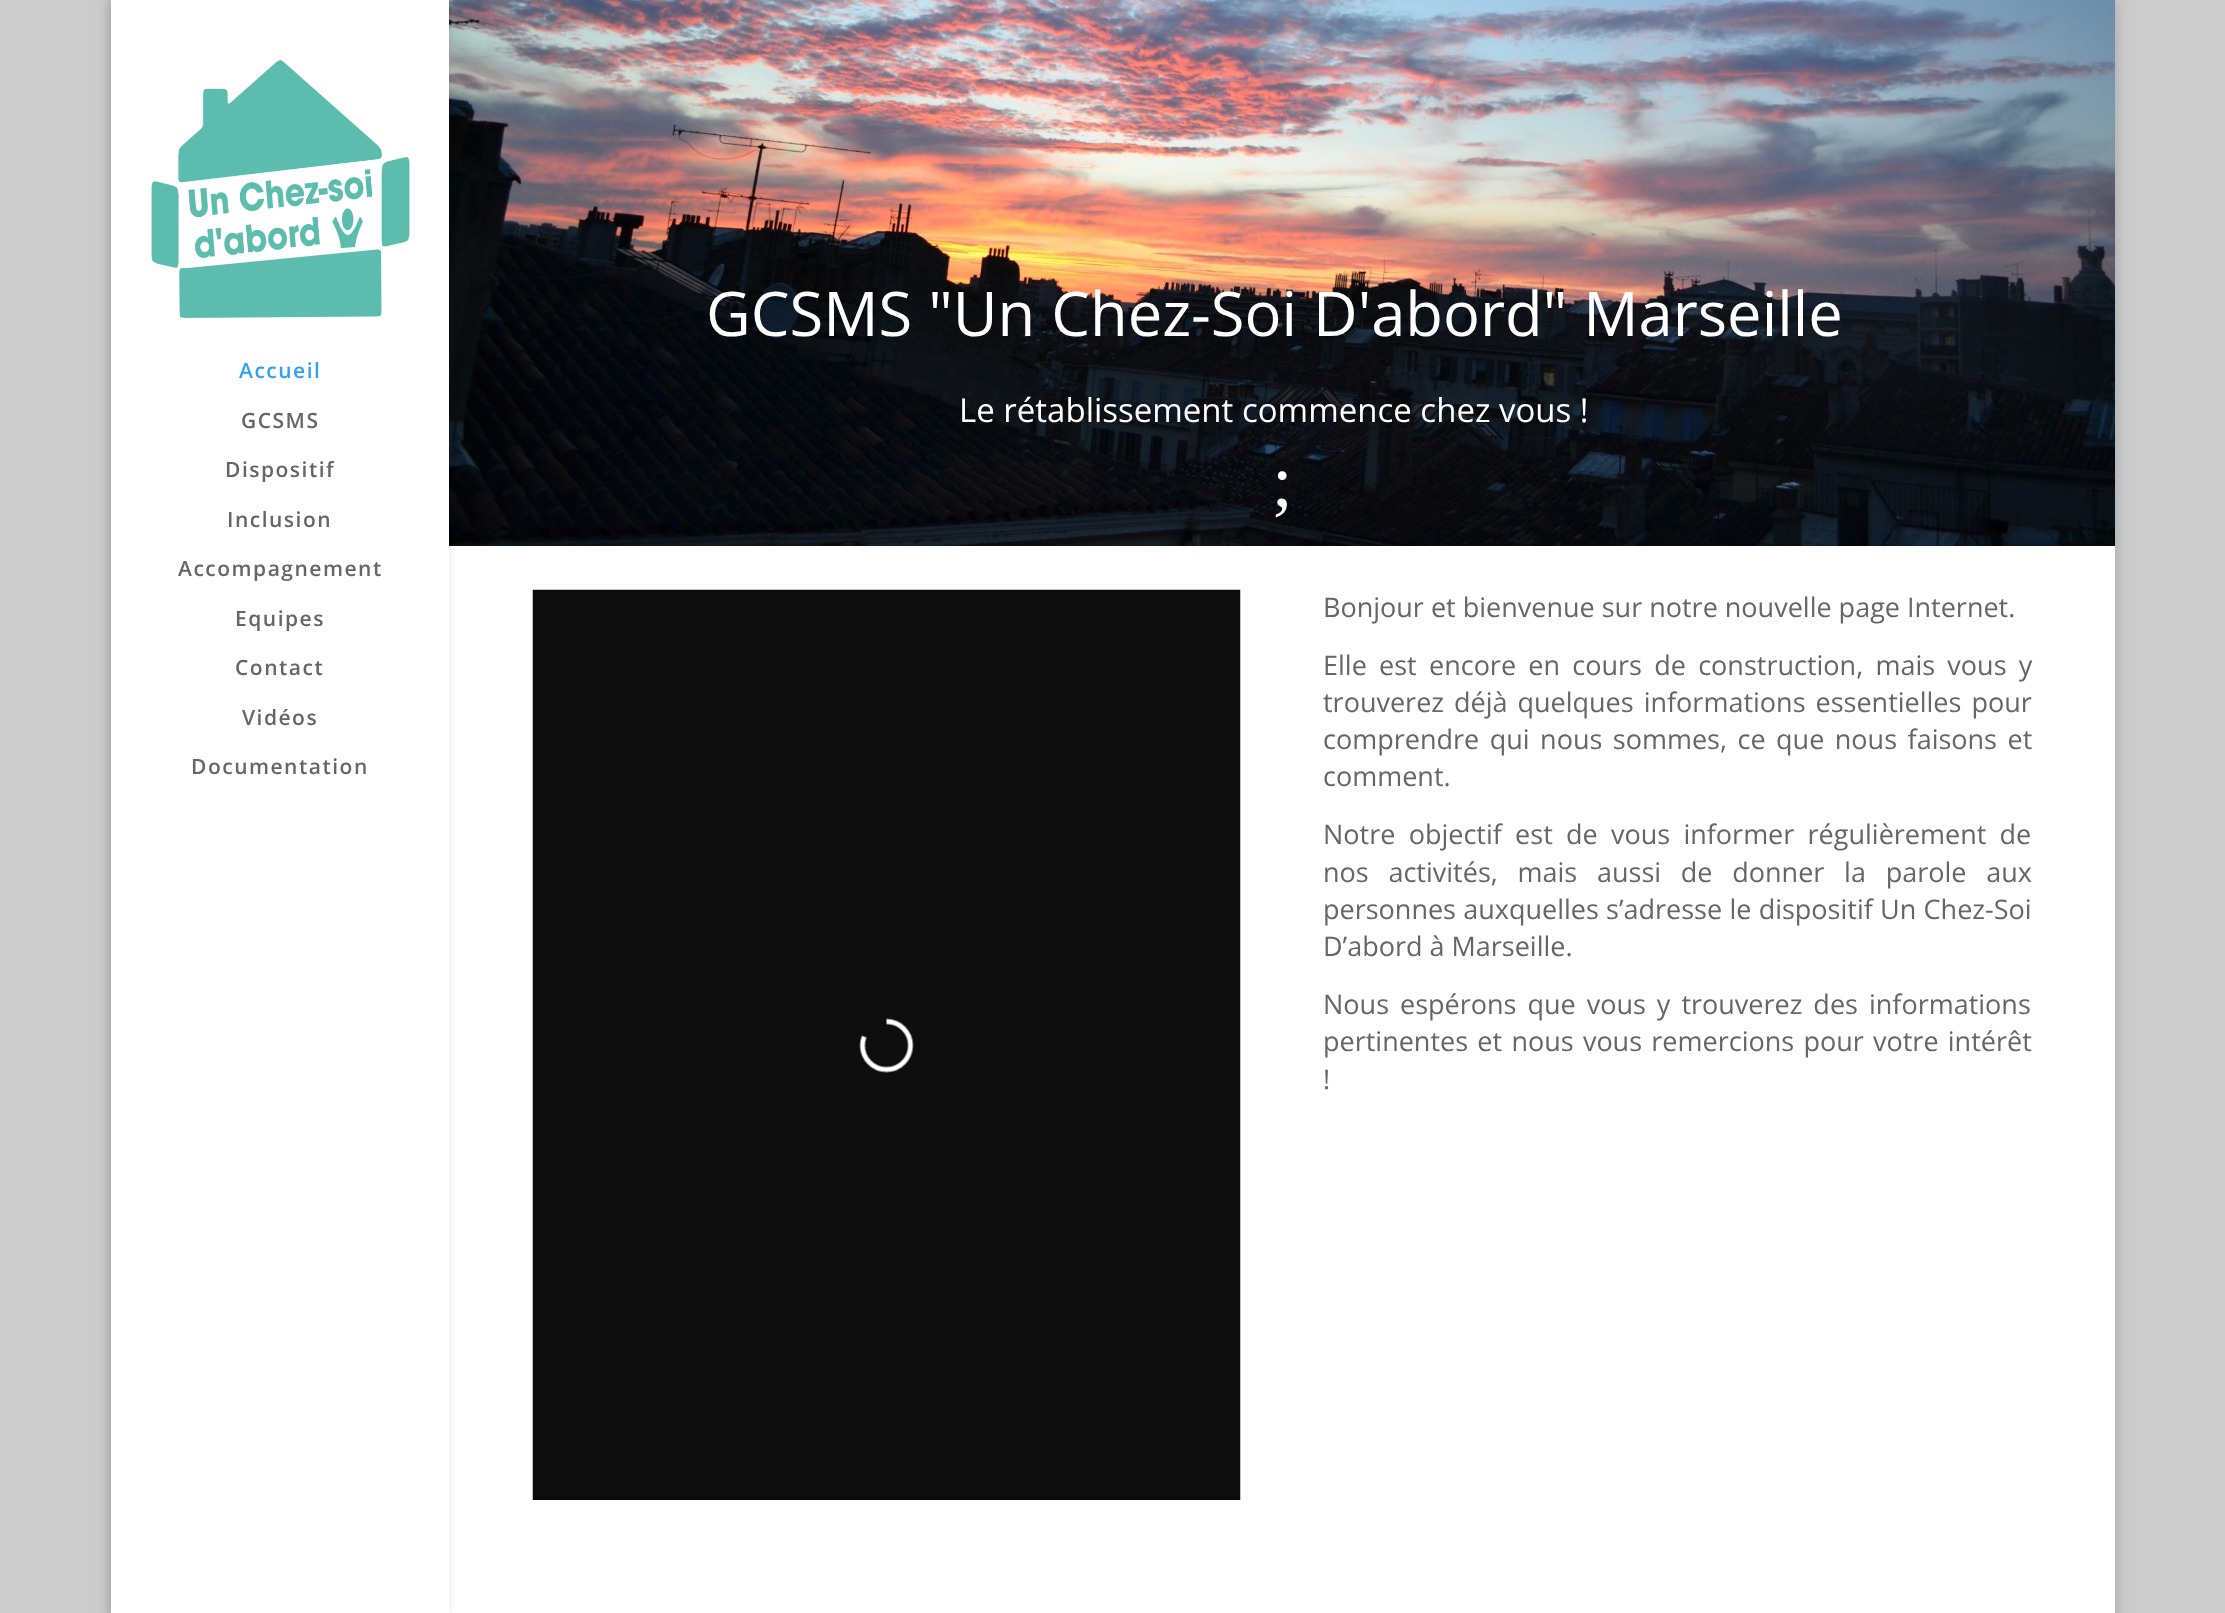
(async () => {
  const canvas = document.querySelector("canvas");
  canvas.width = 2225;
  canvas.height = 1613;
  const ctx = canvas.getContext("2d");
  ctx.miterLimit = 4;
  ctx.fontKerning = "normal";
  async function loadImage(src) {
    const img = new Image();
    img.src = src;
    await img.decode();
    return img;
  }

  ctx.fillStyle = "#cccccc";
  ctx.fillRect(0, 0, 2225, 1613);
  ctx.fillStyle = "rgba(0, 0, 0, 0.2)";
  ctx.filter = "blur(7.5px)";
  ctx.beginPath();
  ctx.rect(111, 0, 2004, 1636);
  ctx.fill();
  ctx.filter = "none";
  ctx.drawImage(await loadImage("img/2.png"), 449, 0, 1666, 546);
  ctx.fillStyle = "#ffffff";
  ctx.fillRect(449, 546, 1666, 1067);
  ctx.fillStyle = "rgba(0, 0, 0, 0.1)";
  ctx.filter = "blur(5px)";
  ctx.beginPath();
  ctx.rect(111, 0, 338, 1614);
  ctx.fill();
  ctx.filter = "none";
  ctx.fillStyle = "#ffffff";
  ctx.fillRect(111, 0, 338, 1613);
  ctx.drawImage(await loadImage("img/1.png"), 151, 60, 259, 258);
  ctx.drawImage(await loadImage("img/3.png"), 532, 589, 709, 911);
  ctx.letterSpacing = "1.5px";
  ctx.font = "600 21px Open Sans";
  ctx.fillStyle = "#2ea3f2";
  ctx.fillText("Accueil", 239, 378);
  ctx.fillStyle = "#666666";
  for (const [text, x, y] of [
    ["GCSMS", 241, 428],
    ["Dispositif", 225, 477],
    ["Inclusion", 227, 527],
    ["Accompagnement", 178, 576],
    ["Equipes", 235, 626],
    ["Contact", 235, 675],
    ["Vidéos", 242, 725],
    ["Documentation", 191, 774],
  ]) {
    ctx.fillText(text, x, y);
  }
  ctx.letterSpacing = "0px";
  ctx.font = "61.5px Open Sans";
  ctx.fillStyle = "#ffffff";
  ctx.fillText("GCSMS \"Un Chez-Soi D'abord\" Marseille", 706, 336);
  ctx.font = "33px Open Sans";
  ctx.fillText("Le rétablissement commence chez vous !", 959, 422);
  ctx.font = "74px Liberation Serif";
  ctx.fillText(";", 1272, 506);
  ctx.font = "27px Open Sans";
  ctx.fillStyle = "#666666";
  ctx.fillText("Bonjour et bienvenue sur notre nouvelle page Internet.", 1323, 617);
  ctx.wordSpacing = "5.25px";
  ctx.fillText("Elle est encore en cours de construction, mais vous y", 1323, 675);
  ctx.wordSpacing = "3px";
  ctx.fillText("trouverez déjà quelques informations essentielles pour", 1323, 712);
  ctx.wordSpacing = "3.5px";
  ctx.fillText("comprendre qui nous sommes, ce que nous faisons et", 1323, 749);
  ctx.wordSpacing = "0px";
  ctx.fillText("comment.", 1323, 786);
  ctx.wordSpacing = "6.25px";
  ctx.fillText("Notre objectif est de vous informer régulièrement de", 1323, 844);
  ctx.wordSpacing = "12.75px";
  ctx.fillText("nos activités, mais aussi de donner la parole aux", 1323, 882);
  ctx.wordSpacing = "0.25px";
  ctx.fillText("personnes auxquelles s’adresse le dispositif Un Chez-Soi", 1323, 919);
  ctx.wordSpacing = "0px";
  ctx.fillText("D’abord à Marseille.", 1323, 956);
  ctx.wordSpacing = "4px";
  ctx.fillText("Nous espérons que vous y trouverez des informations", 1323, 1014);
  ctx.wordSpacing = "2.25px";
  ctx.fillText("pertinentes et nous vous remercions pour votre intérêt", 1323, 1051);
  ctx.wordSpacing = "0px";
  ctx.fillText("!", 1323, 1089);
})();
